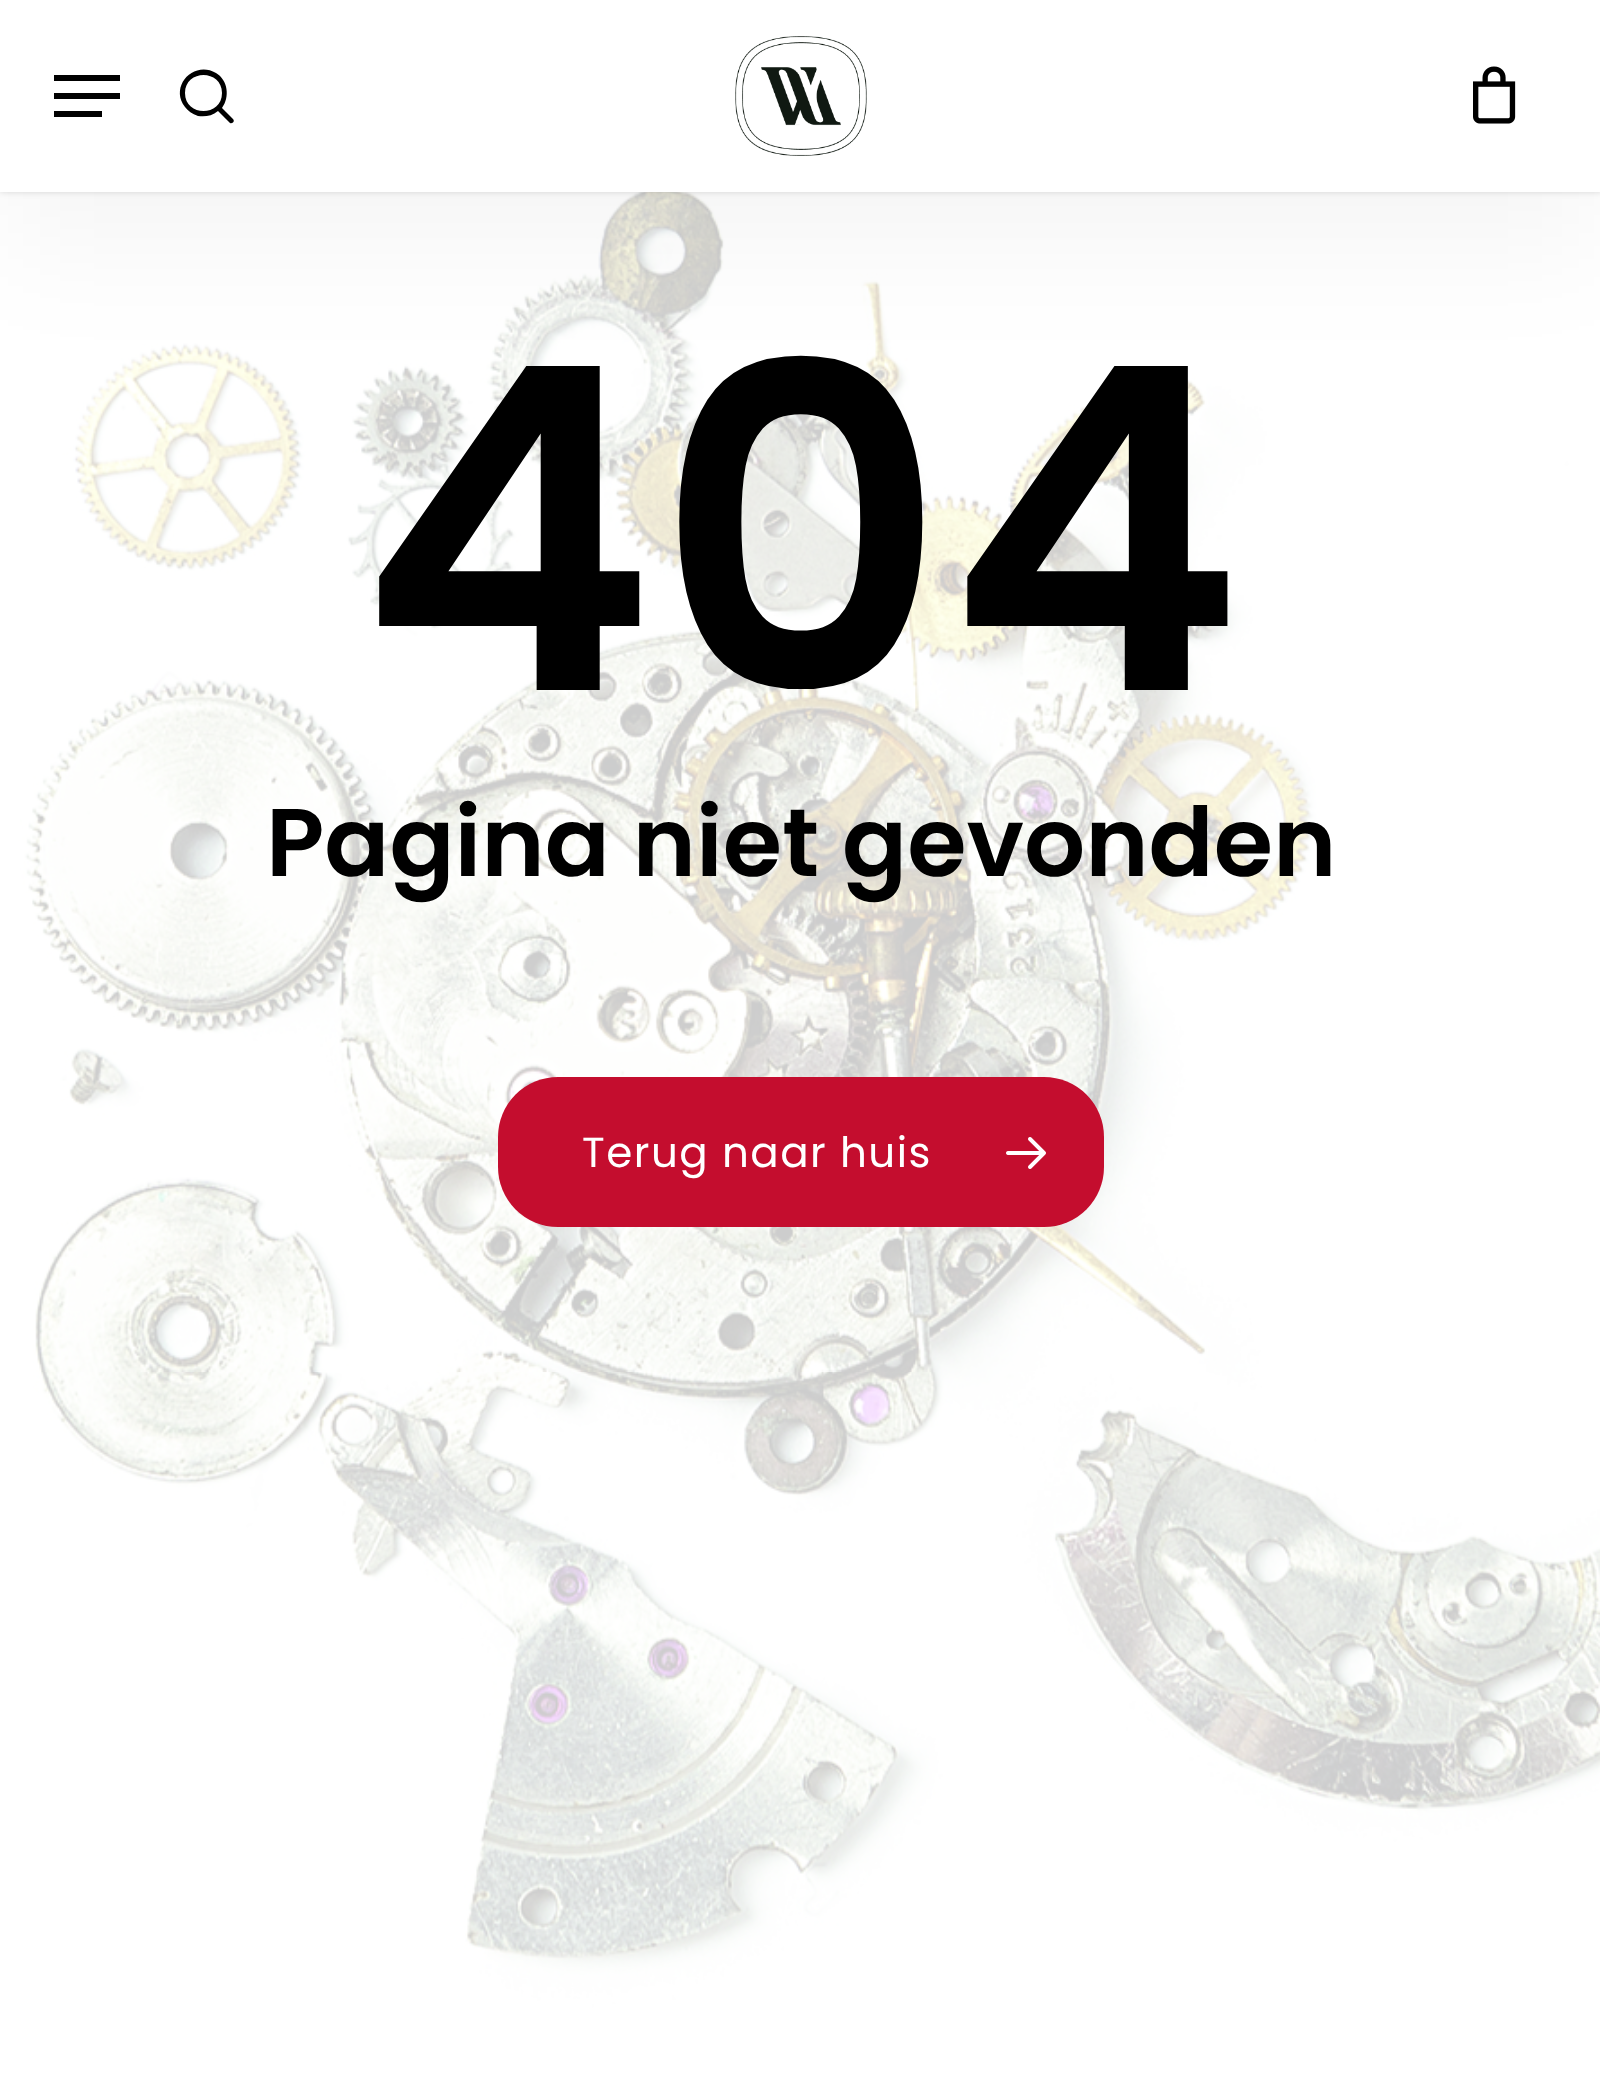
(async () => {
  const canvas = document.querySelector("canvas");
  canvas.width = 1600;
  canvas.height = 2078;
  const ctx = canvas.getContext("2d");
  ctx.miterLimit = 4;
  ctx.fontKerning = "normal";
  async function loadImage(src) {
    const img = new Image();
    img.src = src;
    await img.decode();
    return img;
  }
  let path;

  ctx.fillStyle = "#ffffff";
  ctx.fillRect(0, 0, 1600, 2078);
  ctx.drawImage(await loadImage("img/3.png"), 0, 192, 1600, 1886);
  ctx.fillStyle = "rgba(0, 0, 0, 0.04)";
  ctx.filter = "blur(60px)";
  ctx.beginPath();
  ctx.rect(0, -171, 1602, 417);
  ctx.fill();
  ctx.filter = "none";
  ctx.fillStyle = "rgba(0, 0, 0, 0.14)";
  ctx.filter = "blur(3px)";
  ctx.beginPath();
  ctx.rect(0, -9, 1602, 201);
  ctx.fill();
  ctx.filter = "none";
  ctx.fillStyle = "#ffffff";
  ctx.fillRect(0, 0, 1600, 192);
  ctx.drawImage(await loadImage("img/1.png"), 735, 36, 132, 120);
  for (const [x, y, w, h, color] of [
    [54, 75, 66, 6, "#000000"],
    [54, 111, 48, 6, "#000000"],
    [54, 93, 66, 6, "#000000"],
  ]) {
    ctx.fillStyle = color;
    ctx.fillRect(x, y, w, h);
  }
  path = new Path2D("M233 119L222 108C230 97 228 80 216 73C194 60 169 86 185 107C188 111 192 114 198 116C205 117 212 116 218 111L230 123C233 124 235 121 233 119ZM185 93C185 69 222 69 222 93C222 117 185 117 185 93Z");
  ctx.fill(path);
  ctx.drawImage(await loadImage("img/2.png"), 1473, 66, 43, 58);
  ctx.fillStyle = "#c40d2e";
  ctx.beginPath();
  ctx.roundRect(498, 1077, 606, 150, 60);
  ctx.fill();
  ctx.drawImage(await loadImage("img/4.png"), 1006, 1137, 40, 32);
  ctx.font = "600 450px Poppins";
  ctx.fillStyle = "#000000";
  ctx.fillText("404", 358, 690);
  ctx.font = "600 96px Poppins";
  ctx.fillText("Pagina niet gevonden", 266, 876);
  ctx.letterSpacing = "1.5px";
  ctx.font = "42px Poppins";
  ctx.fillStyle = "#ffffff";
  ctx.fillText("Terug naar huis", 582, 1167);
})();
